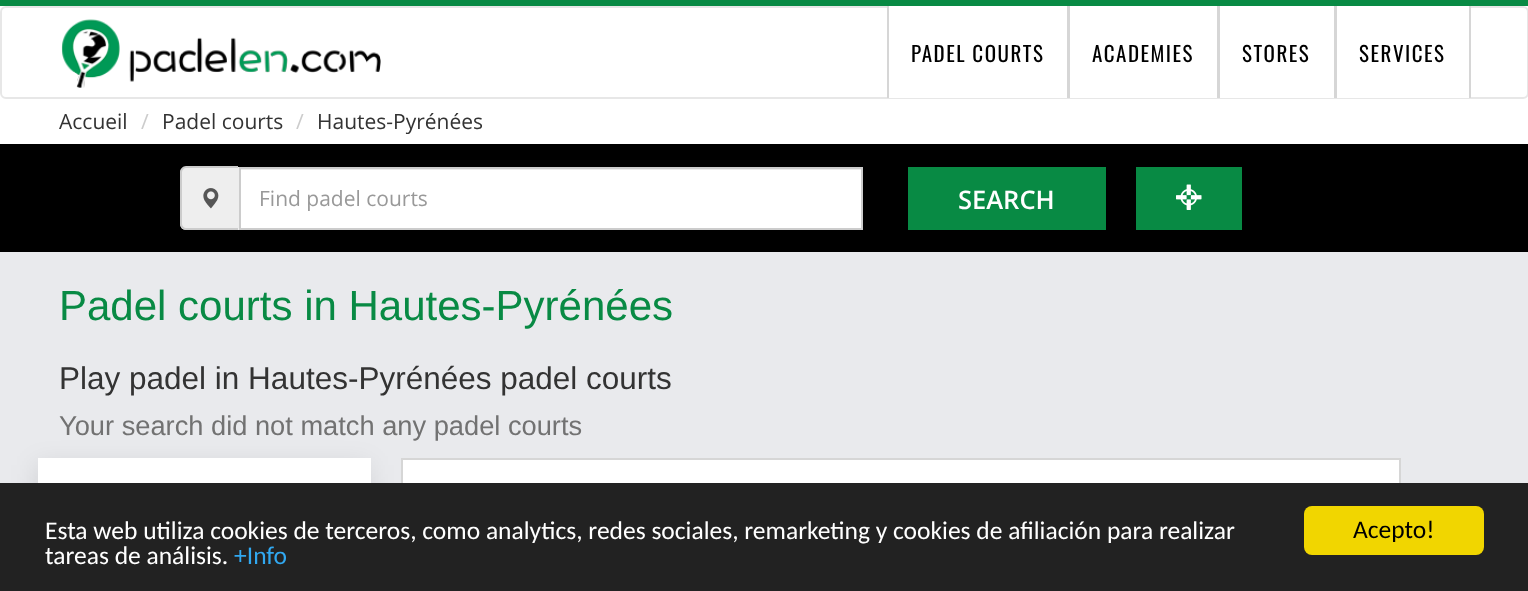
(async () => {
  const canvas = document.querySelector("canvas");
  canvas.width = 1528;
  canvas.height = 591;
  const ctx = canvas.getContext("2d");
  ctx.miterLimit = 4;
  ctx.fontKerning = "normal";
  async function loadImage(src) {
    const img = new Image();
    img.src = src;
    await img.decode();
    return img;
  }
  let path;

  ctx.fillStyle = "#e9eaed";
  ctx.fillRect(0, 0, 1528, 591);
  ctx.fillStyle = "#ffffff";
  ctx.fillRect(0, 6, 1528, 138);
  ctx.fillStyle = "#088a44";
  ctx.fillRect(0, 0, 1528, 6);
  ctx.beginPath();
  ctx.roundRect(1, 7, 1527, 91, 5);
  ctx.strokeStyle = "#e7e7e7";
  ctx.lineWidth = 2;
  ctx.stroke();
  ctx.drawImage(await loadImage("img/1.png"), 61, 19, 320, 69);
  for (const [x, y, w, h, color] of [
    [889, 6, 580, 92, "#ffffff"],
    [1067, 6, 3, 92, "#d6d6d6"],
    [887, 6, 2, 92, "#d6d6d6"],
    [1217, 6, 3, 92, "#d6d6d6"],
    [1334, 6, 3, 92, "#d6d6d6"],
    [1469, 6, 2, 92, "#d6d6d6"],
    [0, 144, 1528, 108, "#000000"],
  ]) {
    ctx.fillStyle = color;
    ctx.fillRect(x, y, w, h);
  }
  ctx.fillStyle = "#eeeeee";
  ctx.beginPath();
  ctx.roundRect(180, 167, 59, 63, [6, 0, 0, 6]);
  ctx.fill();
  ctx.fillStyle = "#cccccc";
  path = new Path2D("M186 166H238V230H186C183 230 180 227 180 224V172C180 169 183 166 186 166ZM186 168H238V228H186C184 228 182 226 182 224V172C182 170 184 168 186 168Z");
  ctx.fill(path, "evenodd");
  ctx.drawImage(await loadImage("img/2.png"), 203, 188, 16, 21);
  ctx.fillStyle = "#ffffff";
  ctx.fillRect(241, 170, 620, 58);
  ctx.fillStyle = "#ececec";
  ctx.fillRect(240, 169, 621, 1);
  ctx.strokeStyle = "#cccccc";
  ctx.strokeRect(240, 168, 622, 61);
  ctx.fillStyle = "#088a44";
  ctx.fillRect(908, 167, 198, 63);
  ctx.fillRect(1136, 167, 106, 63);
  ctx.drawImage(await loadImage("img/3.png"), 1176, 184, 26, 26);
  ctx.fillStyle = "rgba(0, 0, 0, 0.1)";
  ctx.filter = "blur(13px)";
  ctx.beginPath();
  ctx.rect(36, 465, 333, 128);
  ctx.fill();
  ctx.filter = "none";
  ctx.fillStyle = "#ffffff";
  ctx.fillRect(38, 458, 333, 25);
  ctx.fillRect(403, 460, 996, 23);
  ctx.strokeStyle = "#d6d6d6";
  ctx.strokeRect(402, 459, 998, 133);
  ctx.fillStyle = "#222222";
  ctx.fillRect(0, 483, 1528, 108);
  ctx.fillStyle = "#f1d600";
  ctx.beginPath();
  ctx.roundRect(1304, 506, 180, 49, 8);
  ctx.fill();
  ctx.letterSpacing = "1.5px";
  ctx.font = "21px Oswald";
  ctx.fillStyle = "#000000";
  for (const [text, x, y] of [
    ["PADEL COURTS", 911, 62],
    ["ACADEMIES", 1092, 62],
    ["STORES", 1242, 62],
    ["SERVICES", 1359, 62],
  ]) {
    ctx.fillText(text, x, y);
  }
  ctx.letterSpacing = "0px";
  ctx.font = "21px Open Sans";
  ctx.fillStyle = "#333333";
  ctx.fillText("Accueil", 59, 129);
  ctx.fillStyle = "#cccccc";
  ctx.fillText("/", 141, 129);
  ctx.fillStyle = "#333333";
  ctx.fillText("Padel courts", 162, 129);
  ctx.fillStyle = "#cccccc";
  ctx.fillText("/", 296, 129);
  ctx.fillStyle = "#333333";
  ctx.fillText("Hautes-Pyrénées", 317, 129);
  ctx.fillStyle = "#999999";
  ctx.fillText("Find padel courts", 259, 206);
  ctx.font = "600 25.5px Open Sans";
  ctx.fillStyle = "#ffffff";
  ctx.fillText("SEARCH", 958, 209);
  ctx.font = "42px Liberation Sans";
  ctx.fillStyle = "#088a44";
  ctx.fillText("Padel courts in Hautes-Pyrénées", 59, 320);
  ctx.font = "31.5px Liberation Sans";
  ctx.fillStyle = "#333333";
  ctx.fillText("Play padel in Hautes-Pyrénées padel courts", 59, 389);
  ctx.font = "27.25px Liberation Sans";
  ctx.fillStyle = "#727272";
  ctx.fillText("Your search did not match any padel courts", 59, 435);
  ctx.font = "25.5px Carlito";
  ctx.fillStyle = "#ffffff";
  ctx.fillText("Esta web utiliza cookies de terceros, como analytics, redes sociales, remarketing y cookies de afiliación para realizar", 45, 539);
  ctx.fillText("tareas de análisis.", 45, 564);
  ctx.fillStyle = "#31a8f0";
  ctx.fillText("+Info", 234, 564);
  ctx.fillStyle = "#000000";
  ctx.fillText("Acepto!", 1353, 538);
})();
